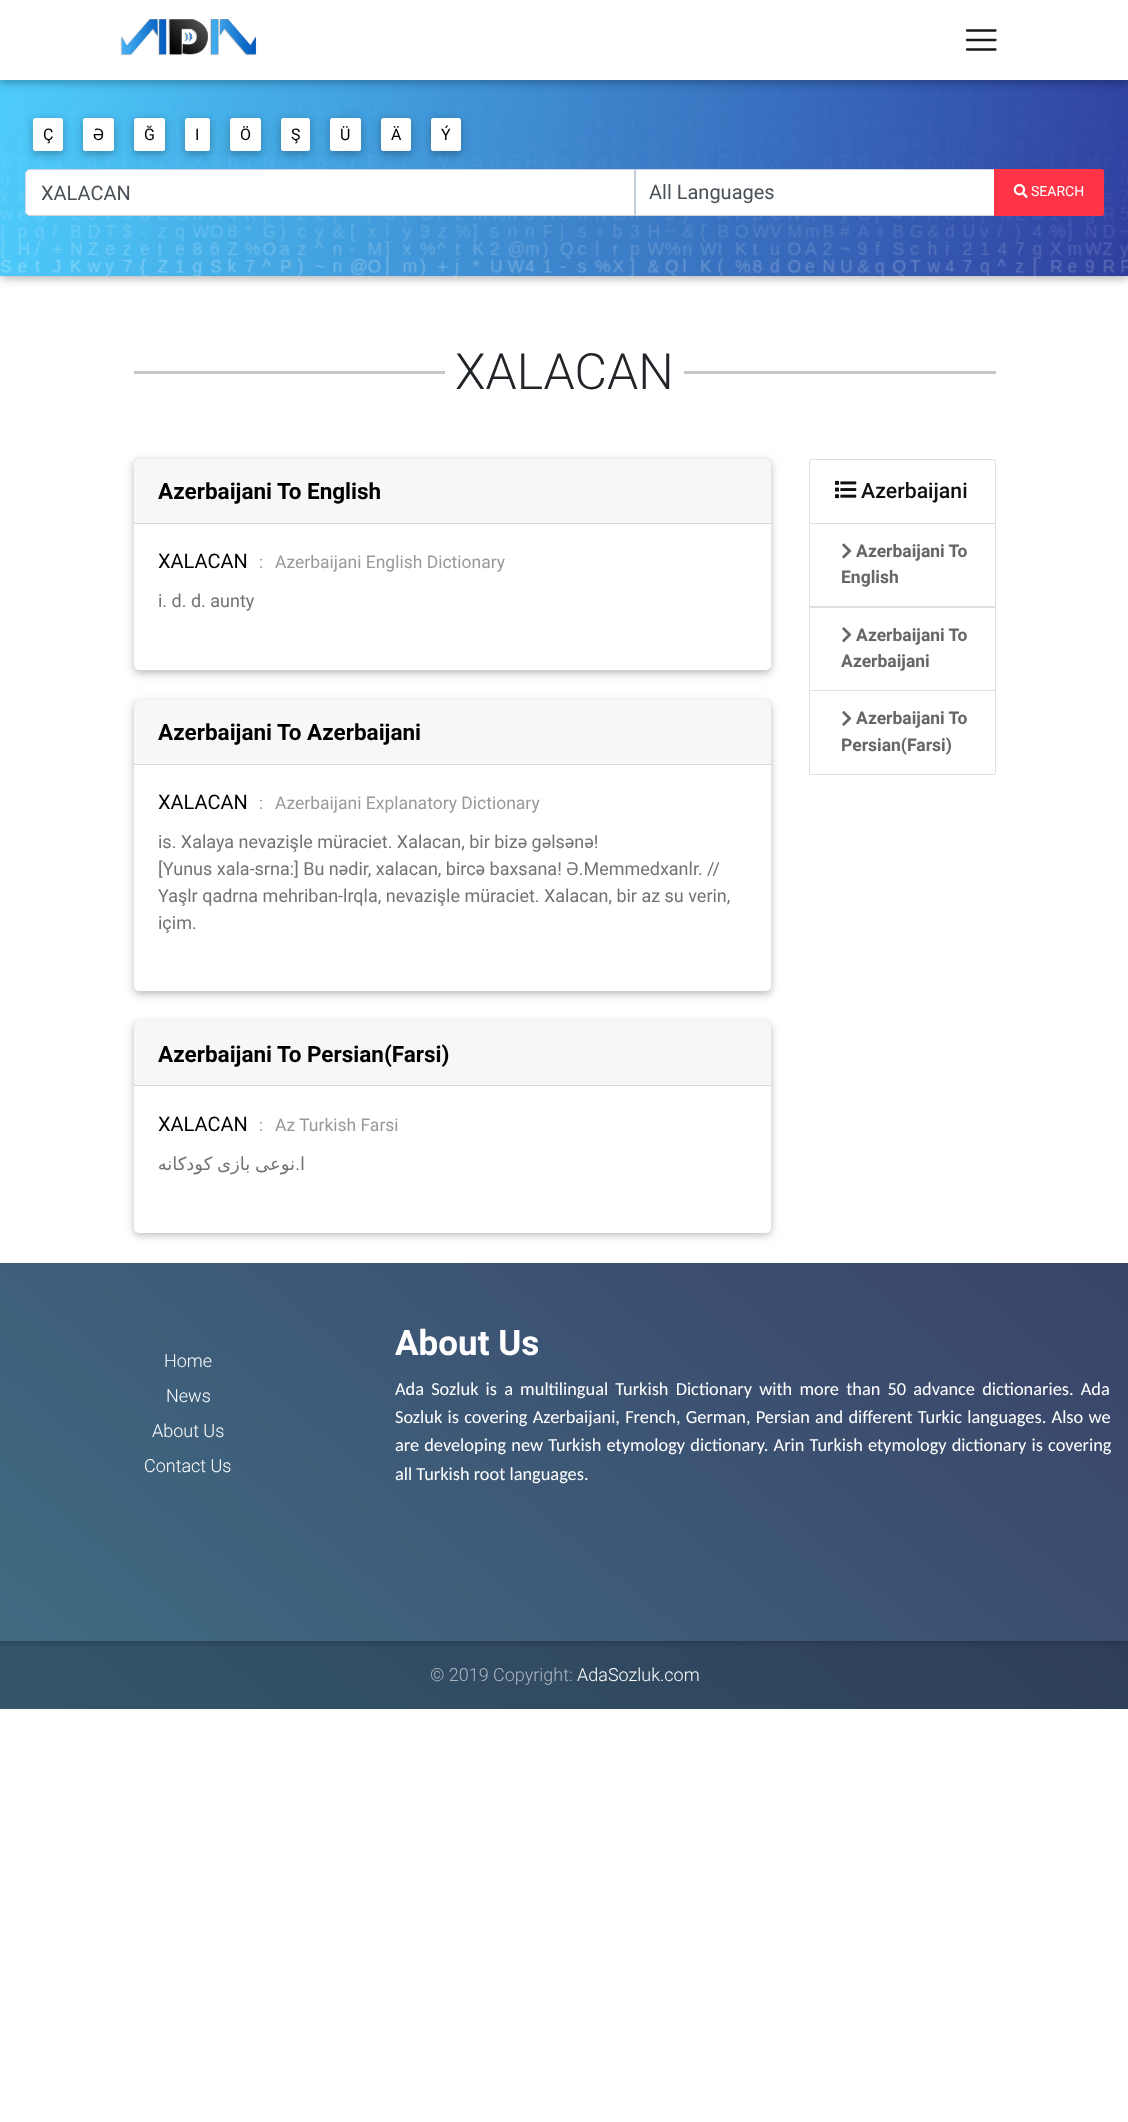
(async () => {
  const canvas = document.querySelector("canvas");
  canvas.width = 1128;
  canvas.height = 2122;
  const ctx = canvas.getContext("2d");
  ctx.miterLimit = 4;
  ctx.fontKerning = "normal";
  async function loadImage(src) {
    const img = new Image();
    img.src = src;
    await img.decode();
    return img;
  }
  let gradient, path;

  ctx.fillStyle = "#ffffff";
  ctx.fillRect(0, 0, 1128, 2122);
  ctx.save();
  path = new Path2D("M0 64H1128V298H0ZM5 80H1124C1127 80 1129 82 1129 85V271C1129 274 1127 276 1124 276H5C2 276 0 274 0 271V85C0 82 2 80 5 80Z");
  ctx.clip(path, "evenodd");
  ctx.fillStyle = "rgba(0, 0, 0, 0.12)";
  ctx.filter = "blur(6px)";
  ctx.beginPath();
  ctx.roundRect(0, 83, 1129, 196, 5);
  ctx.fill();
  ctx.filter = "none";
  ctx.restore();
  ctx.save();
  path = new Path2D("M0 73H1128V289H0ZM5 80H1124C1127 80 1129 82 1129 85V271C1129 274 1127 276 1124 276H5C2 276 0 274 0 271V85C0 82 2 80 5 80Z");
  ctx.clip(path, "evenodd");
  ctx.fillStyle = "rgba(0, 0, 0, 0.16)";
  ctx.filter = "blur(3px)";
  ctx.beginPath();
  ctx.roundRect(0, 83, 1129, 196, 5);
  ctx.fill();
  ctx.filter = "none";
  ctx.restore();
  ctx.drawImage(await loadImage("img/2.png"), 0, 80, 1128, 196);
  ctx.fillStyle = "rgba(0, 0, 0, 0.12)";
  ctx.filter = "blur(6px)";
  ctx.beginPath();
  ctx.rect(0, 3, 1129, 80);
  ctx.fill();
  ctx.filter = "none";
  ctx.fillStyle = "rgba(0, 0, 0, 0.16)";
  ctx.filter = "blur(3px)";
  ctx.beginPath();
  ctx.rect(0, 3, 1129, 80);
  ctx.fill();
  ctx.filter = "none";
  ctx.fillStyle = "#ffffff";
  ctx.fillRect(0, 0, 1128, 80);
  ctx.drawImage(await loadImage("img/1.png"), 120, 19, 137, 37);
  path = new Path2D("M967 30.5H995.5M967 40H995.5M967 49.5H995.5");
  ctx.strokeStyle = "#1a1a1a";
  ctx.lineWidth = 2.3;
  ctx.lineCap = "round";
  ctx.stroke(path);
  ctx.fillStyle = "rgba(0, 0, 0, 0.12)";
  ctx.filter = "blur(6px)";
  ctx.beginPath();
  ctx.roundRect(33, 120, 30, 34, 2.5);
  ctx.fill();
  ctx.filter = "none";
  ctx.fillStyle = "rgba(0, 0, 0, 0.16)";
  ctx.filter = "blur(3px)";
  ctx.beginPath();
  ctx.roundRect(33, 120, 30, 34, 2.5);
  ctx.fill();
  ctx.filter = "none";
  ctx.fillStyle = "#ffffff";
  ctx.beginPath();
  ctx.roundRect(33, 118, 30, 33, 2.5);
  ctx.fill();
  ctx.fillStyle = "rgba(0, 0, 0, 0.12)";
  ctx.filter = "blur(6px)";
  ctx.beginPath();
  ctx.roundRect(83, 120, 31, 34, 2.5);
  ctx.fill();
  ctx.filter = "none";
  ctx.fillStyle = "rgba(0, 0, 0, 0.16)";
  ctx.filter = "blur(3px)";
  ctx.beginPath();
  ctx.roundRect(83, 120, 31, 34, 2.5);
  ctx.fill();
  ctx.filter = "none";
  ctx.fillStyle = "#ffffff";
  ctx.beginPath();
  ctx.roundRect(83, 118, 31, 33, 2.5);
  ctx.fill();
  ctx.fillStyle = "rgba(0, 0, 0, 0.12)";
  ctx.filter = "blur(6px)";
  ctx.beginPath();
  ctx.roundRect(134, 120, 31, 34, 2.5);
  ctx.fill();
  ctx.filter = "none";
  ctx.fillStyle = "rgba(0, 0, 0, 0.16)";
  ctx.filter = "blur(3px)";
  ctx.beginPath();
  ctx.roundRect(134, 120, 31, 34, 2.5);
  ctx.fill();
  ctx.filter = "none";
  ctx.fillStyle = "#ffffff";
  ctx.beginPath();
  ctx.roundRect(134, 118, 31, 33, 2.5);
  ctx.fill();
  ctx.fillStyle = "rgba(0, 0, 0, 0.12)";
  ctx.filter = "blur(6px)";
  ctx.beginPath();
  ctx.roundRect(185, 120, 25, 34, 2.5);
  ctx.fill();
  ctx.filter = "none";
  ctx.fillStyle = "rgba(0, 0, 0, 0.16)";
  ctx.filter = "blur(3px)";
  ctx.beginPath();
  ctx.roundRect(185, 120, 25, 34, 2.5);
  ctx.fill();
  ctx.filter = "none";
  ctx.fillStyle = "#ffffff";
  ctx.beginPath();
  ctx.roundRect(185, 118, 25, 33, 2.5);
  ctx.fill();
  ctx.fillStyle = "rgba(0, 0, 0, 0.12)";
  ctx.filter = "blur(6px)";
  ctx.beginPath();
  ctx.roundRect(230, 120, 31, 34, 2.5);
  ctx.fill();
  ctx.filter = "none";
  ctx.fillStyle = "rgba(0, 0, 0, 0.16)";
  ctx.filter = "blur(3px)";
  ctx.beginPath();
  ctx.roundRect(230, 120, 31, 34, 2.5);
  ctx.fill();
  ctx.filter = "none";
  ctx.fillStyle = "#ffffff";
  ctx.beginPath();
  ctx.roundRect(230, 118, 31, 33, 2.5);
  ctx.fill();
  ctx.fillStyle = "rgba(0, 0, 0, 0.12)";
  ctx.filter = "blur(6px)";
  ctx.beginPath();
  ctx.roundRect(281, 120, 29, 34, 2.5);
  ctx.fill();
  ctx.filter = "none";
  ctx.fillStyle = "rgba(0, 0, 0, 0.16)";
  ctx.filter = "blur(3px)";
  ctx.beginPath();
  ctx.roundRect(281, 120, 29, 34, 2.5);
  ctx.fill();
  ctx.filter = "none";
  ctx.fillStyle = "#ffffff";
  ctx.beginPath();
  ctx.roundRect(281, 118, 29, 33, 2.5);
  ctx.fill();
  ctx.fillStyle = "rgba(0, 0, 0, 0.12)";
  ctx.filter = "blur(6px)";
  ctx.beginPath();
  ctx.roundRect(330, 120, 31, 34, 2.5);
  ctx.fill();
  ctx.filter = "none";
  ctx.fillStyle = "rgba(0, 0, 0, 0.16)";
  ctx.filter = "blur(3px)";
  ctx.beginPath();
  ctx.roundRect(330, 120, 31, 34, 2.5);
  ctx.fill();
  ctx.filter = "none";
  ctx.fillStyle = "#ffffff";
  ctx.beginPath();
  ctx.roundRect(330, 118, 31, 33, 2.5);
  ctx.fill();
  ctx.fillStyle = "rgba(0, 0, 0, 0.12)";
  ctx.filter = "blur(6px)";
  ctx.beginPath();
  ctx.roundRect(381, 120, 30, 34, 2.5);
  ctx.fill();
  ctx.filter = "none";
  ctx.fillStyle = "rgba(0, 0, 0, 0.16)";
  ctx.filter = "blur(3px)";
  ctx.beginPath();
  ctx.roundRect(381, 120, 30, 34, 2.5);
  ctx.fill();
  ctx.filter = "none";
  ctx.fillStyle = "#ffffff";
  ctx.beginPath();
  ctx.roundRect(381, 118, 30, 33, 2.5);
  ctx.fill();
  ctx.fillStyle = "rgba(0, 0, 0, 0.12)";
  ctx.filter = "blur(6px)";
  ctx.beginPath();
  ctx.roundRect(431, 120, 30, 34, 2.5);
  ctx.fill();
  ctx.filter = "none";
  ctx.fillStyle = "rgba(0, 0, 0, 0.16)";
  ctx.filter = "blur(3px)";
  ctx.beginPath();
  ctx.roundRect(431, 120, 30, 34, 2.5);
  ctx.fill();
  ctx.filter = "none";
  ctx.fillStyle = "#ffffff";
  ctx.beginPath();
  ctx.roundRect(431, 118, 30, 33, 2.5);
  ctx.fill();
  ctx.beginPath();
  ctx.roundRect(25.5, 169.5, 609, 46, [4.5, 0, 0, 4.5]);
  ctx.fill();
  ctx.strokeStyle = "#ced4da";
  ctx.lineWidth = 1;
  ctx.stroke();
  ctx.beginPath();
  ctx.rect(635.5, 169.5, 359, 46);
  ctx.fill();
  ctx.stroke();
  ctx.fillStyle = "#ff3547";
  ctx.beginPath();
  ctx.roundRect(994, 169, 110, 47, [0, 2.5, 2.5, 0]);
  ctx.fill();
  ctx.drawImage(await loadImage("img/3.png"), 1013, 184, 15, 14);
  ctx.fillStyle = "#c6c6c6";
  ctx.fillRect(134, 371, 311, 3);
  ctx.fillRect(684, 371, 312, 3);
  ctx.fillStyle = "rgba(0, 0, 0, 0.12)";
  ctx.filter = "blur(6px)";
  ctx.beginPath();
  ctx.roundRect(134, 461, 637, 212, 5);
  ctx.fill();
  ctx.filter = "none";
  ctx.fillStyle = "rgba(0, 0, 0, 0.16)";
  ctx.filter = "blur(3px)";
  ctx.beginPath();
  ctx.roundRect(134, 461, 637, 212, 5);
  ctx.fill();
  ctx.filter = "none";
  ctx.fillStyle = "#ffffff";
  ctx.beginPath();
  ctx.roundRect(134, 459, 637, 211, 5);
  ctx.fill();
  ctx.fillStyle = "rgba(0, 0, 0, 0.03)";
  ctx.fillRect(134, 459, 637, 64);
  ctx.fillStyle = "#d8d8d8";
  ctx.fillRect(134, 523, 637, 1);
  ctx.fillStyle = "rgba(0, 0, 0, 0.12)";
  ctx.filter = "blur(6px)";
  ctx.beginPath();
  ctx.roundRect(134, 703, 637, 291, 5);
  ctx.fill();
  ctx.filter = "none";
  ctx.fillStyle = "rgba(0, 0, 0, 0.16)";
  ctx.filter = "blur(3px)";
  ctx.beginPath();
  ctx.roundRect(134, 703, 637, 291, 5);
  ctx.fill();
  ctx.filter = "none";
  ctx.fillStyle = "#ffffff";
  ctx.beginPath();
  ctx.roundRect(134, 700, 637, 291, 5);
  ctx.fill();
  ctx.fillStyle = "rgba(0, 0, 0, 0.03)";
  ctx.fillRect(134, 700, 637, 64);
  ctx.fillStyle = "#d8d8d8";
  ctx.fillRect(134, 764, 637, 1);
  ctx.fillStyle = "rgba(0, 0, 0, 0.12)";
  ctx.filter = "blur(6px)";
  ctx.beginPath();
  ctx.roundRect(134, 1024, 637, 211, 5);
  ctx.fill();
  ctx.filter = "none";
  ctx.fillStyle = "rgba(0, 0, 0, 0.16)";
  ctx.filter = "blur(3px)";
  ctx.beginPath();
  ctx.roundRect(134, 1024, 637, 211, 5);
  ctx.fill();
  ctx.filter = "none";
  ctx.fillStyle = "#ffffff";
  ctx.beginPath();
  ctx.roundRect(134, 1021, 637, 212, 5);
  ctx.fill();
  ctx.fillStyle = "rgba(0, 0, 0, 0.03)";
  ctx.fillRect(134, 1021, 637, 64);
  ctx.fillStyle = "#d8d8d8";
  ctx.fillRect(134, 1085, 637, 1);
  ctx.beginPath();
  ctx.roundRect(809.5, 459.5, 186, 64, [2, 2, 0, 0]);
  ctx.strokeStyle = "#dfdfdf";
  ctx.stroke();
  ctx.drawImage(await loadImage("img/4.png"), 835, 480, 22, 19);
  ctx.fillStyle = "#dfdfdf";
  path = new Path2D("M996 524V608L995 606V524Z");
  ctx.fill(path);
  ctx.fillStyle = "rgba(0, 0, 0, 0.12)";
  path = new Path2D("M996 608H809L810 606H995Z");
  ctx.fill(path);
  path = new Path2D("M809 608V524H810V606Z");
  ctx.fill(path);
  ctx.drawImage(await loadImage("img/5.png"), 842, 543, 10, 16);
  ctx.fillStyle = "#dfdfdf";
  path = new Path2D("M996 608V691L995 690V608Z");
  ctx.fill(path);
  ctx.fillStyle = "rgba(0, 0, 0, 0.12)";
  path = new Path2D("M996 691H809L810 690H995Z");
  ctx.fill(path);
  path = new Path2D("M809 691V608H810V690Z");
  ctx.fill(path);
  ctx.drawImage(await loadImage("img/6.png"), 842, 627, 10, 16);
  for (const [x, y, w, h, color] of [
    [995, 691, 1, 83, "#dfdfdf"],
    [810, 774, 185, 1, "#dfdfdf"],
    [809, 691, 1, 83, "#dfdfdf"],
  ]) {
    ctx.fillStyle = color;
    ctx.fillRect(x, y, w, h);
  }
  ctx.drawImage(await loadImage("img/7.png"), 842, 711, 10, 15);
  gradient = ctx.createLinearGradient(221, 1894, 907, 1077);
  gradient.addColorStop(0, "#406d84");
  gradient.addColorStop(1, "#3a4368");
  ctx.fillStyle = gradient;
  ctx.fillRect(0, 1263, 1128, 446);
  ctx.save();
  ctx.beginPath();
  ctx.rect(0, 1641, 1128, 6);
  ctx.clip();
  ctx.fillStyle = "rgba(0, 0, 0, 0.16)";
  ctx.filter = "blur(3px)";
  ctx.beginPath();
  ctx.rect(0, 1265, 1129, 379);
  ctx.fill();
  ctx.filter = "none";
  ctx.restore();
  ctx.fillStyle = "rgba(0, 0, 0, 0.2)";
  ctx.fillRect(0, 1641, 1128, 68);
  ctx.font = "16px Roboto";
  ctx.fillStyle = "#000000";
  for (const [text, x, y] of [
    ["Ç", 43, 140],
    ["Ə", 93, 140],
    ["Ğ", 144, 140],
    ["I", 195, 140],
    ["Ö", 240, 140],
    ["Ş", 291, 140],
    ["Ü", 340, 140],
    ["Ä", 391, 140],
    ["Ý", 441, 140],
  ]) {
    ctx.fillText(text, x, y);
  }
  ctx.font = "20px Roboto";
  ctx.fillStyle = "#495057";
  ctx.fillText("XALACAN", 41, 200);
  ctx.fillText("All Languages", 649, 199);
  ctx.font = "14px Roboto";
  ctx.fillStyle = "#ffffff";
  ctx.fillText("SEARCH", 1031, 196);
  ctx.font = "300 50px Roboto";
  ctx.fillStyle = "#212529";
  ctx.fillText("XALACAN", 455, 389);
  ctx.font = "bold 22.5px Roboto";
  ctx.fillStyle = "#000000";
  ctx.fillText("Azerbaijani To English", 158, 499);
  ctx.font = "20px Roboto";
  ctx.fillText("XALACAN", 158, 568);
  ctx.font = "17.5px Roboto";
  ctx.fillStyle = "#999999";
  ctx.fillText(":", 259, 568);
  ctx.fillText("Azerbaijani English Dictionary", 275, 568);
  ctx.font = "18px Roboto";
  ctx.fillStyle = "#747373";
  ctx.fillText("i. d. d. aunty", 158, 607);
  ctx.font = "bold 22.5px Roboto";
  ctx.fillStyle = "#000000";
  ctx.fillText("Azerbaijani To Azerbaijani", 158, 740);
  ctx.font = "20px Roboto";
  ctx.fillText("XALACAN", 158, 809);
  ctx.font = "17.5px Roboto";
  ctx.fillStyle = "#999999";
  ctx.fillText(":", 259, 809);
  ctx.fillText("Azerbaijani Explanatory Dictionary", 275, 809);
  ctx.font = "18px Roboto";
  ctx.fillStyle = "#747373";
  for (const [text, x, y] of [
    ["is. Xalaya nevazişle müraciet. Xalacan, bir bizə gəlsənə!", 158, 848],
    ["[Yunus xala-srna:] Bu nədir, xalacan, bircə baxsana! Ə.Memmedxanlr. //", 158, 875],
    ["Yaşlr qadrna mehriban-lrqla, nevazişle müraciet. Xalacan, bir az su verin,", 158, 902],
    ["içim.", 158, 929],
  ]) {
    ctx.fillText(text, x, y);
  }
  ctx.font = "bold 22.5px Roboto";
  ctx.fillStyle = "#000000";
  ctx.fillText("Azerbaijani To Persian(Farsi)", 158, 1062);
  ctx.font = "20px Roboto";
  ctx.fillText("XALACAN", 158, 1131);
  ctx.font = "17.5px Roboto";
  ctx.fillStyle = "#999999";
  ctx.fillText(":", 259, 1131);
  ctx.fillText("Az Turkish Farsi", 275, 1131);
  ctx.wordSpacing = "-1px";
  ctx.direction = "rtl";
  ctx.font = "18px DejaVu Sans";
  ctx.fillStyle = "#747373";
  ctx.fillText("نوعی بازی کودکانه", 295, 1170);
  ctx.wordSpacing = "0px";
  ctx.font = "18px Roboto";
  ctx.fillText(".", 300, 1170);
  ctx.font = "18px DejaVu Sans";
  ctx.fillText("ا", 305, 1170);
  ctx.direction = "ltr";
  ctx.font = "500 21.25px Roboto";
  ctx.fillStyle = "#111111";
  ctx.fillText("Azerbaijani", 861, 498);
  ctx.font = "bold 17.5px Roboto";
  ctx.fillStyle = "#666666";
  for (const [text, x, y] of [
    ["Azerbaijani To", 856, 557],
    ["English", 841, 583],
    ["Azerbaijani To", 856, 641],
    ["Azerbaijani", 841, 667],
    ["Azerbaijani To", 856, 724],
    ["Persian(Farsi)", 841, 751],
  ]) {
    ctx.fillText(text, x, y);
  }
  ctx.font = "300 18px Roboto";
  ctx.fillStyle = "#ffffff";
  for (const [text, x, y] of [
    ["Home", 164, 1367],
    ["News", 166, 1402],
    ["About Us", 152, 1437],
    ["Contact Us", 144, 1472],
  ]) {
    ctx.fillText(text, x, y);
  }
  ctx.font = "bold 35px Roboto";
  ctx.fillText("About Us", 395, 1355);
  ctx.wordSpacing = "3px";
  ctx.font = "18.35px Carlito";
  ctx.fillText("Ada Sozluk is a multilingual Turkish Dictionary with more than 50 advance dictionaries. Ada", 395, 1395);
  ctx.wordSpacing = "1.1px";
  ctx.fillText("Sozluk is covering Azerbaijani, French, German, Persian and different Turkic languages. Also we", 395, 1423);
  ctx.wordSpacing = "1px";
  ctx.fillText("are developing new Turkish etymology dictionary. Arin Turkish etymology dictionary is covering", 395, 1451);
  ctx.wordSpacing = "0px";
  ctx.fillText("all Turkish root languages.", 395, 1480);
  ctx.font = "300 18px Roboto";
  ctx.fillStyle = "#adb7c0";
  ctx.fillText("© 2019 Copyright:", 430, 1681);
  ctx.fillStyle = "#ffffff";
  ctx.fillText("AdaSozluk.com", 577, 1681);
})();
